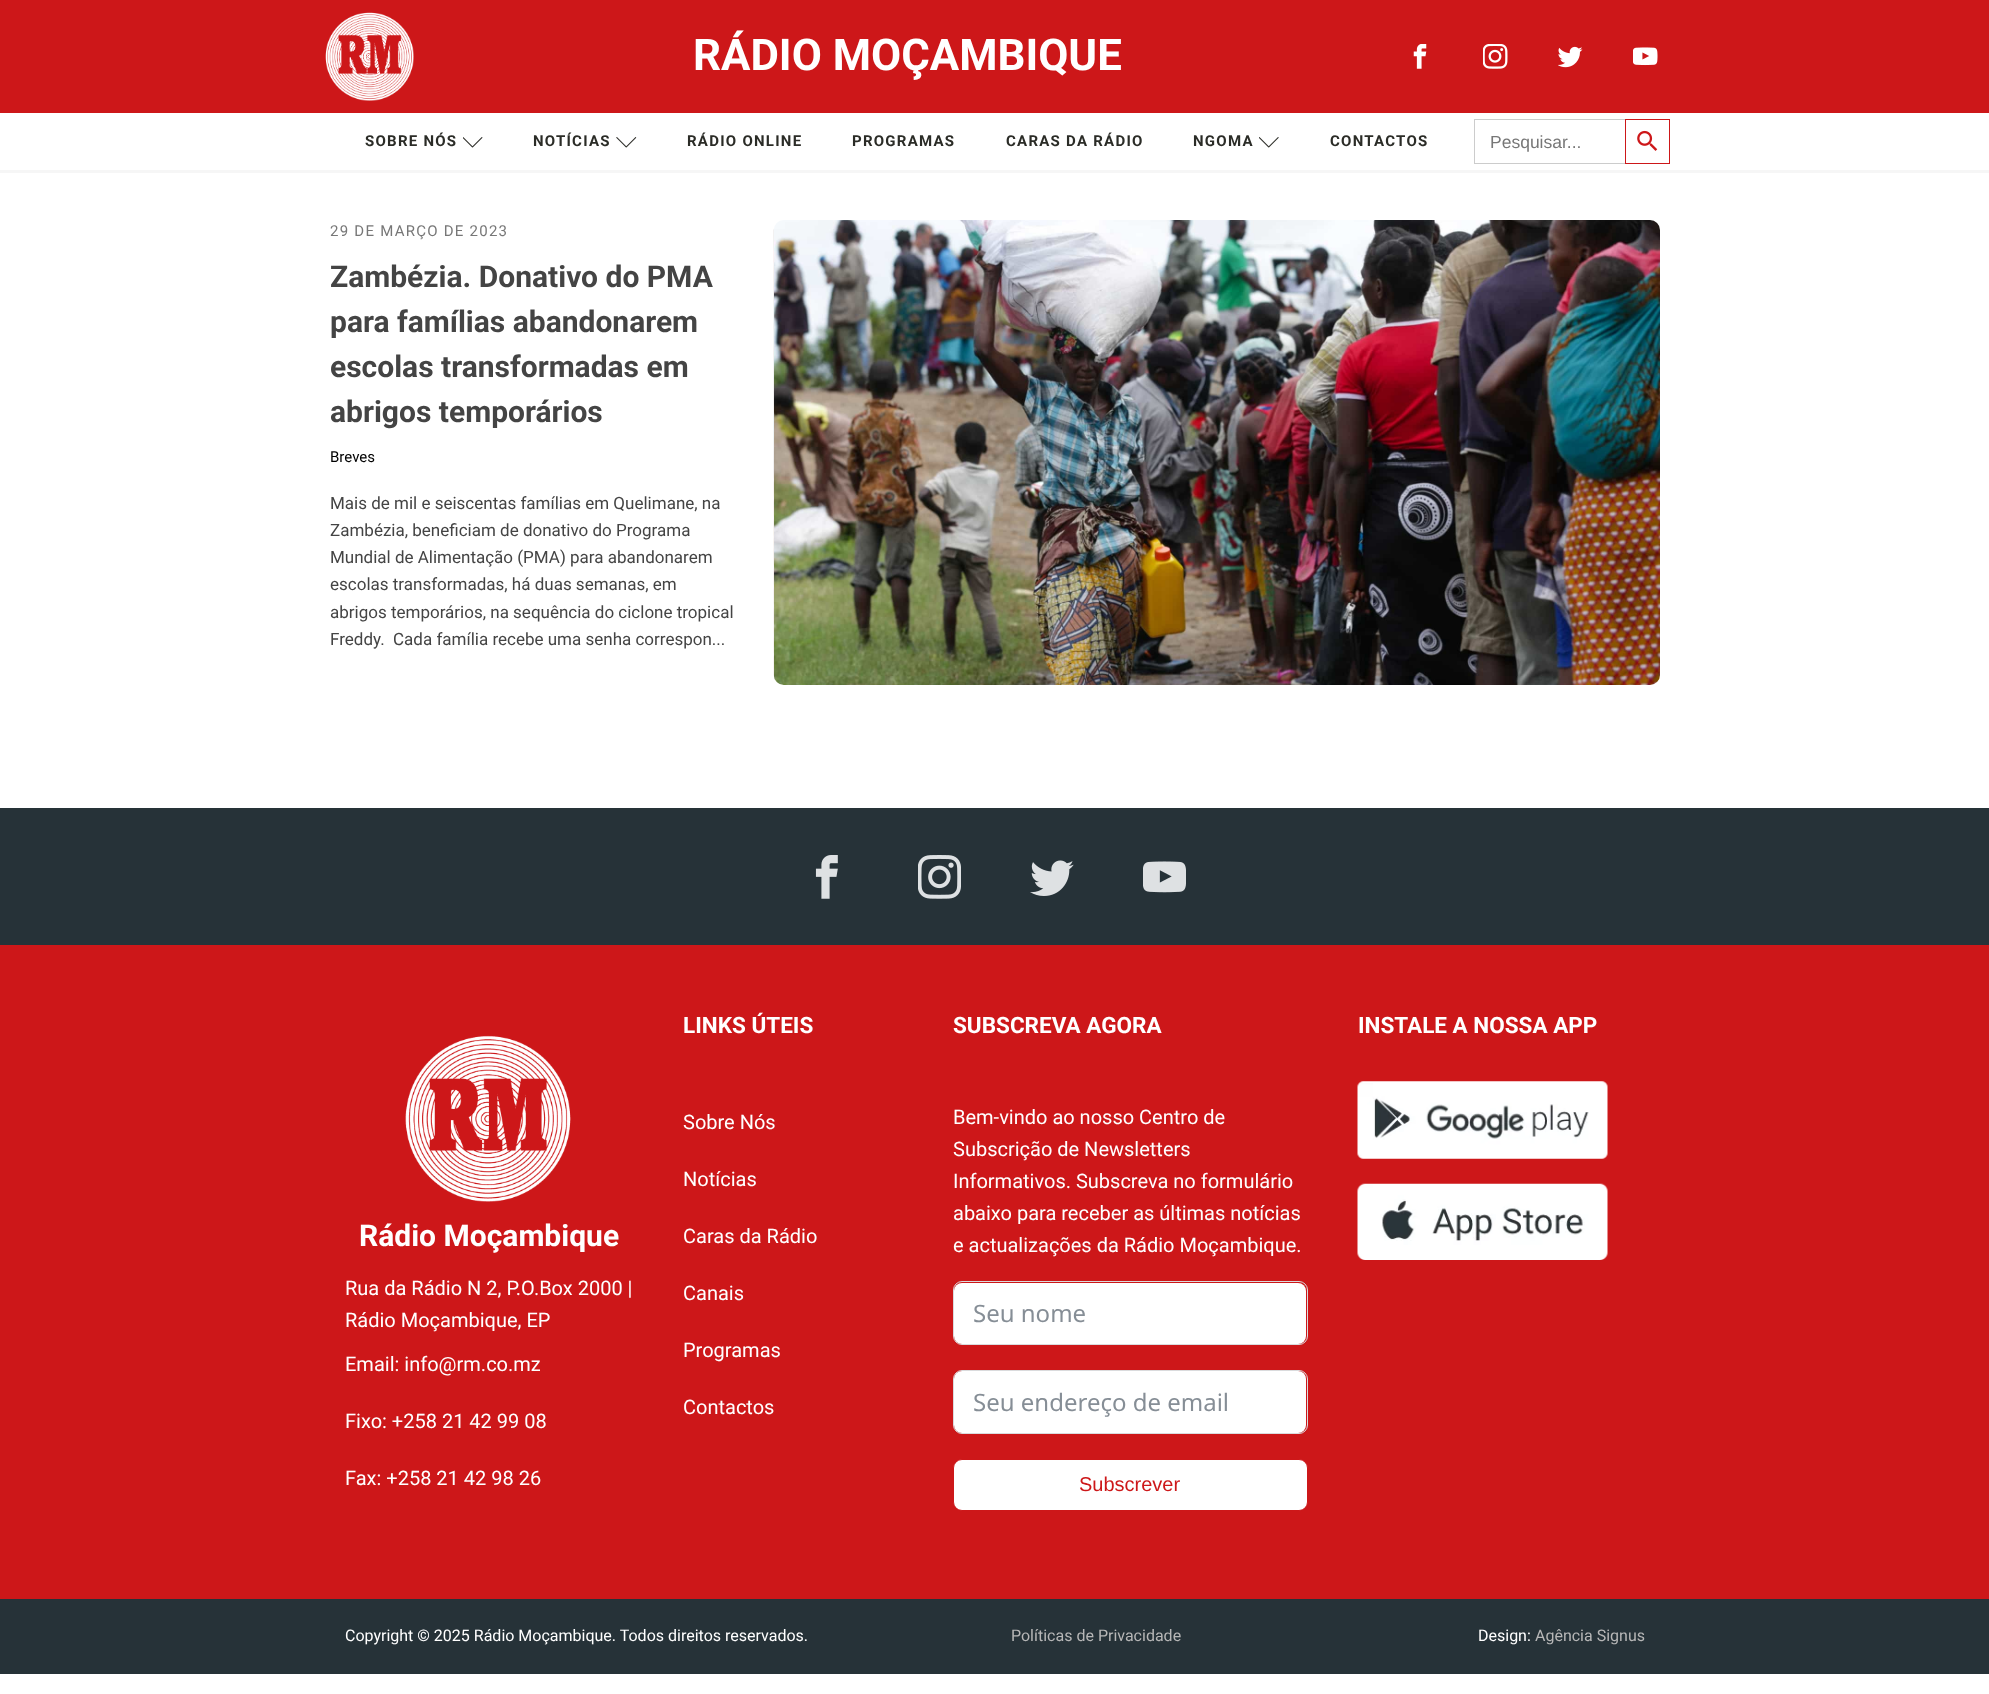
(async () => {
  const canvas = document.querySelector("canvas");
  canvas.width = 1989;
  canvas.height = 1694;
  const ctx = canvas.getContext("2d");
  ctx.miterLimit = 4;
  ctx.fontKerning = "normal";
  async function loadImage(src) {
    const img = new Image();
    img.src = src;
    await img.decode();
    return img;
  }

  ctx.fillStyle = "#ffffff";
  ctx.fillRect(0, 0, 1989, 1694);
  ctx.fillStyle = "#cd1719";
  ctx.fillRect(0, 0, 1989, 113);
  ctx.drawImage(await loadImage("img/1.png"), 325, 12, 89, 89);
  ctx.drawImage(await loadImage("img/2.png"), 1413, 44, 14, 25);
  ctx.drawImage(await loadImage("img/3.png"), 1483, 44, 25, 25);
  ctx.drawImage(await loadImage("img/4.png"), 1558, 46, 25, 22);
  ctx.drawImage(await loadImage("img/5.png"), 1633, 47, 25, 19);
  ctx.fillStyle = "#f6f6f6";
  ctx.fillRect(0, 170, 1989, 3);
  ctx.drawImage(await loadImage("img/6.png"), 463, 137, 20, 11);
  ctx.drawImage(await loadImage("img/7.png"), 616, 137, 21, 11);
  ctx.drawImage(await loadImage("img/8.png"), 1259, 137, 20, 11);
  for (const [x, y, w, h, color] of [
    [1474, 119, 151, 1, "#cccccc"],
    [1474, 163, 151, 1, "#cccccc"],
    [1474, 119, 1, 45, "#cccccc"],
  ]) {
    ctx.fillStyle = color;
    ctx.fillRect(x, y, w, h);
  }
  ctx.strokeStyle = "#cd1719";
  ctx.strokeRect(1625.5, 119.5, 44, 44);
  ctx.drawImage(await loadImage("img/9.png"), 1637, 130, 21, 21);
  ctx.drawImage(await loadImage("img/10.png"), 773, 220, 887, 465);
  ctx.fillStyle = "#263238";
  ctx.fillRect(0, 808, 1989, 137);
  ctx.drawImage(await loadImage("img/11.png"), 815, 855, 23, 44);
  ctx.drawImage(await loadImage("img/12.png"), 918, 855, 43, 44);
  ctx.drawImage(await loadImage("img/13.png"), 1030, 860, 44, 36);
  ctx.drawImage(await loadImage("img/14.png"), 1143, 861, 43, 32);
  ctx.fillStyle = "#cd1719";
  ctx.fillRect(0, 945, 1989, 654);
  ctx.fillStyle = "#ffffff";
  ctx.beginPath();
  ctx.roundRect(954, 1283, 352, 61, 8);
  ctx.fill();
  ctx.beginPath();
  ctx.roundRect(953.5, 1281.5, 354, 63, 8.5);
  ctx.strokeStyle = "#dadbdd";
  ctx.stroke();
  ctx.beginPath();
  ctx.roundRect(954, 1371, 352, 62, 8);
  ctx.fill();
  ctx.beginPath();
  ctx.roundRect(953.5, 1370.5, 354, 63, 8.5);
  ctx.stroke();
  ctx.beginPath();
  ctx.roundRect(953.5, 1459.5, 354, 51, 8.5);
  ctx.fill();
  ctx.strokeStyle = "#cd1719";
  ctx.stroke();
  ctx.drawImage(await loadImage("img/15.png"), 1357, 1081, 251, 78);
  ctx.drawImage(await loadImage("img/16.png"), 1357, 1183, 251, 77);
  ctx.drawImage(await loadImage("img/17.png"), 405, 1035, 166, 167);
  ctx.fillStyle = "#263238";
  ctx.fillRect(0, 1599, 1989, 75);
  ctx.font = "bold 43.75px Roboto";
  ctx.fillStyle = "#ffffff";
  ctx.fillText("RÁDIO MOÇAMBIQUE", 693, 70);
  ctx.letterSpacing = "1.25px";
  ctx.font = "bold 15px Roboto";
  ctx.fillStyle = "#2b2c27";
  for (const [text, x, y] of [
    ["SOBRE NÓS", 365, 146],
    ["NOTÍCIAS", 533, 146],
    ["RÁDIO ONLINE", 687, 146],
    ["PROGRAMAS", 852, 146],
    ["CARAS DA RÁDIO", 1006, 146],
    ["NGOMA", 1193, 146],
    ["CONTACTOS", 1330, 146],
  ]) {
    ctx.fillText(text, x, y);
  }
  ctx.letterSpacing = "0px";
  ctx.font = "17.5px Liberation Sans";
  ctx.fillStyle = "#777777";
  ctx.fillText("Pesquisar...", 1490, 148);
  ctx.letterSpacing = "1.25px";
  ctx.font = "15px Roboto";
  ctx.fillText("29 DE MARÇO DE 2023", 330, 236);
  ctx.letterSpacing = "0px";
  ctx.font = "bold 30px Roboto";
  ctx.fillStyle = "#444444";
  for (const [text, x, y] of [
    ["Zambézia. Donativo do PMA", 330, 287],
    ["para famílias abandonarem", 330, 332],
    ["escolas transformadas em", 330, 377],
    ["abrigos temporários", 330, 422],
  ]) {
    ctx.fillText(text, x, y);
  }
  ctx.font = "15px Roboto";
  ctx.fillStyle = "#000000";
  ctx.fillText("Breves", 330, 462);
  ctx.font = "17px Roboto";
  ctx.fillStyle = "#444444";
  for (const [text, x, y] of [
    ["Mais de mil e seiscentas famílias em Quelimane, na", 330, 509],
    ["Zambézia, beneficiam de donativo do Programa", 330, 536],
    ["Mundial de Alimentação (PMA) para abandonarem", 330, 563],
    ["escolas transformadas, há duas semanas, em", 330, 590],
    ["abrigos temporários, na sequência do ciclone tropical", 330, 618],
    ["Freddy.  Cada família recebe uma senha correspon...", 330, 645],
  ]) {
    ctx.fillText(text, x, y);
  }
  ctx.font = "bold 22.5px Roboto";
  ctx.fillStyle = "#ffffff";
  ctx.fillText("LINKS ÚTEIS", 683, 1033);
  ctx.font = "20px Roboto";
  for (const [text, x, y] of [
    ["Sobre Nós", 683, 1129],
    ["Notícias", 683, 1186],
    ["Caras da Rádio", 683, 1243],
    ["Canais", 683, 1300],
    ["Programas", 683, 1357],
    ["Contactos", 683, 1414],
  ]) {
    ctx.fillText(text, x, y);
  }
  ctx.font = "bold 22.5px Roboto";
  ctx.fillText("SUBSCREVA AGORA", 953, 1033);
  ctx.font = "20px Roboto";
  for (const [text, x, y] of [
    ["Bem-vindo ao nosso Centro de", 953, 1124],
    ["Subscrição de Newsletters", 953, 1156],
    ["Informativos. Subscreva no formulário", 953, 1188],
    ["abaixo para receber as últimas notícias", 953, 1220],
    ["e actualizações da Rádio Moçambique.", 953, 1252],
  ]) {
    ctx.fillText(text, x, y);
  }
  ctx.font = "24px Noto Sans";
  ctx.fillStyle = "#868e96";
  ctx.fillText("Seu nome", 973, 1322);
  ctx.fillText("Seu endereço de email", 973, 1411);
  ctx.font = "20px Liberation Sans";
  ctx.fillStyle = "#cd1719";
  ctx.fillText("Subscrever", 1079, 1491);
  ctx.font = "bold 22.5px Roboto";
  ctx.fillStyle = "#ffffff";
  ctx.fillText("INSTALE A NOSSA APP", 1358, 1033);
  ctx.font = "bold 30px Roboto";
  ctx.fillText("Rádio Moçambique", 359, 1246);
  ctx.font = "20px Roboto";
  for (const [text, x, y] of [
    ["Rua da Rádio N 2, P.O.Box 2000 |", 345, 1295],
    ["Rádio Moçambique, EP", 345, 1327],
    ["Email: info@rm.co.mz", 345, 1371],
    ["Fixo: +258 21 42 99 08", 345, 1428],
    ["Fax: +258 21 42 98 26", 345, 1485],
  ]) {
    ctx.fillText(text, x, y);
  }
  ctx.font = "16px Roboto";
  ctx.fillText("Copyright © 2025 Rádio Moçambique. Todos direitos reservados.", 345, 1641);
  ctx.fillStyle = "#b7b7b7";
  ctx.fillText("Políticas de Privacidade", 1011, 1641);
  ctx.fillStyle = "#ffffff";
  ctx.fillText("Design:", 1478, 1641);
  ctx.fillStyle = "#b7b7b7";
  ctx.fillText("Agência Signus", 1535, 1641);
})();
